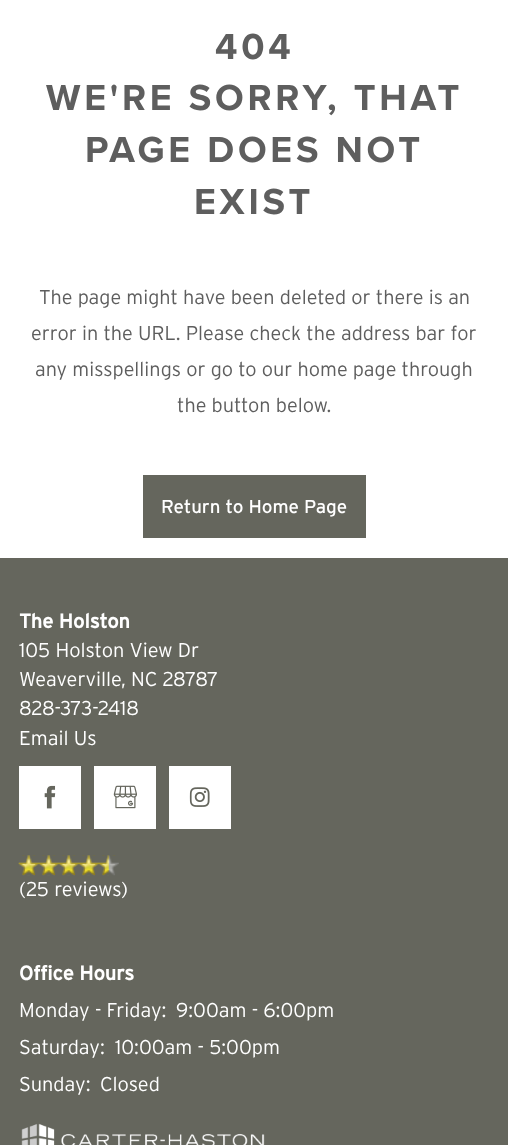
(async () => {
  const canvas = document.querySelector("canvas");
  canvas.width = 508;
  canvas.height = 1145;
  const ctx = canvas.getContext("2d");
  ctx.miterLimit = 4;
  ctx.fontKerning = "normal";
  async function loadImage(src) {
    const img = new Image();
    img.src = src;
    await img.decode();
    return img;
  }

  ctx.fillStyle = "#ffffff";
  ctx.fillRect(0, 0, 508, 1145);
  for (const [x, y, w, h, color] of [
    [143, 475, 223, 63, "#65665d"],
    [0, 558, 508, 587, "#65665d"],
    [19, 766, 62, 63, "#ffffff"],
  ]) {
    ctx.fillStyle = color;
    ctx.fillRect(x, y, w, h);
  }
  ctx.drawImage(await loadImage("img/1.png"), 44, 785, 12, 24);
  ctx.fillRect(94, 766, 62, 63);
  ctx.drawImage(await loadImage("img/2.png"), 113, 785, 24, 24);
  ctx.fillRect(169, 766, 62, 63);
  ctx.drawImage(await loadImage("img/3.png"), 189, 787, 21, 20);
  ctx.drawImage(await loadImage("img/4.png"), 18, 855, 101, 21);
  ctx.drawImage(await loadImage("img/5.png"), 18, 855, 91, 21);
  ctx.drawImage(await loadImage("img/6.png"), 21, 1123, 244, 22);
  ctx.letterSpacing = "3.75px";
  ctx.font = "bold 37.5px Proxima Nova";
  ctx.fillStyle = "#5e5e5e";
  for (const [text, x, y] of [
    ["404", 215, 59],
    ["WE'RE SORRY, THAT", 46, 110],
    ["PAGE DOES NOT", 85, 162],
    ["EXIST", 194, 214],
  ]) {
    ctx.fillText(text, x, y);
  }
  ctx.letterSpacing = "0px";
  ctx.font = "300 19.9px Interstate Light";
  for (const [text, x, y] of [
    ["The page might have been deleted or there is an", 39, 304],
    ["error in the URL. Please check the address bar for", 31, 340],
    ["any misspellings or go to our home page through", 35, 376],
    ["the button below.", 177, 412],
  ]) {
    ctx.fillText(text, x, y);
  }
  ctx.font = "18.75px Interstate";
  ctx.fillStyle = "#ffffff";
  ctx.fillText("Return to Home Page", 161, 513);
  ctx.font = "bold 20px Interstate";
  ctx.fillText("The Holston", 19, 628);
  ctx.font = "300 20px Interstate Light";
  for (const [text, x, y] of [
    ["105 Holston View Dr", 19, 657],
    ["Weaverville", 19, 686],
    [", NC 28787", 121, 686],
    ["828-373-2418", 19, 715],
    ["Email Us", 19, 745],
    ["(25 reviews)", 19, 896],
  ]) {
    ctx.fillText(text, x, y);
  }
  ctx.font = "bold 20px Interstate";
  ctx.fillText("Office Hours", 19, 980);
  ctx.font = "300 20px Interstate Light";
  for (const [text, x, y] of [
    ["Monday - Friday:", 19, 1017],
    ["9:00am - 6:00pm", 176, 1017],
    ["Saturday:", 19, 1054],
    ["10:00am - 5:00pm", 115, 1054],
    ["Sunday:", 19, 1091],
    ["Closed", 100, 1091],
  ]) {
    ctx.fillText(text, x, y);
  }
})();
